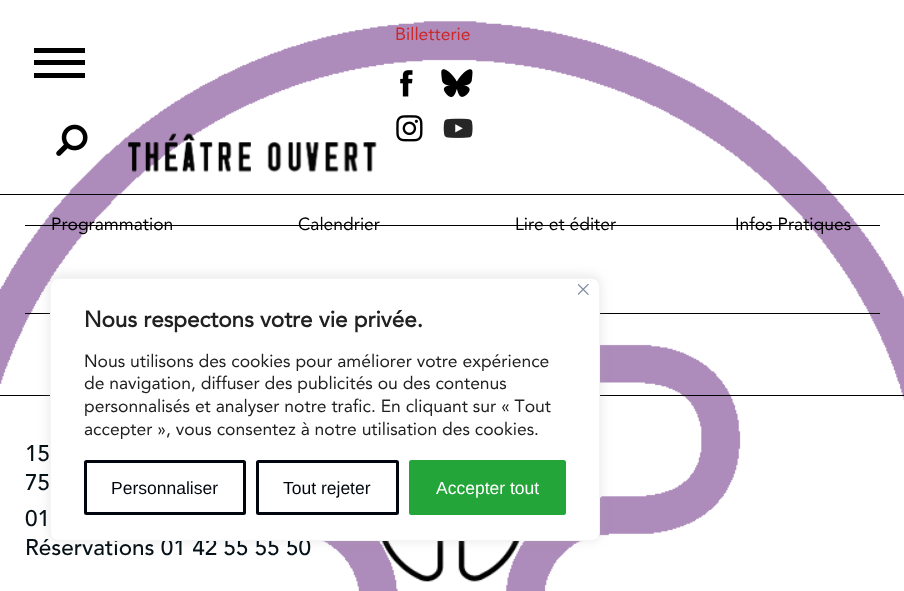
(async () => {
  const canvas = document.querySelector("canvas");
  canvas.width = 904;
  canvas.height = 591;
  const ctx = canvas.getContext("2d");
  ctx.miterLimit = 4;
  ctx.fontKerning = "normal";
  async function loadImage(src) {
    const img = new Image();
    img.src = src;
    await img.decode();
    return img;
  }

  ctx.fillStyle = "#ffffff";
  ctx.fillRect(0, 0, 904, 591);
  ctx.drawImage(await loadImage("img/1.png"), 0, 21, 904, 570);
  ctx.fillStyle = "#000000";
  ctx.fillRect(0, 194, 904, 1);
  ctx.drawImage(await loadImage("img/2.png"), 400, 70, 13, 27);
  ctx.drawImage(await loadImage("img/3.png"), 441, 69, 32, 28);
  ctx.drawImage(await loadImage("img/4.png"), 396, 115, 27, 27);
  ctx.drawImage(await loadImage("img/5.png"), 443, 118, 30, 20);
  for (const [x, y, w, h, color] of [
    [34, 60, 51, 5, "#000000"],
    [34, 48, 51, 5, "#000000"],
    [34, 73, 51, 5, "#000000"],
  ]) {
    ctx.fillStyle = color;
    ctx.fillRect(x, y, w, h);
  }
  ctx.drawImage(await loadImage("img/6.png"), 56, 124, 32, 32);
  ctx.drawImage(await loadImage("img/7.png"), 128, 133, 249, 40);
  for (const [x, y, w, h, color] of [
    [25, 225, 855, 1, "#000000"],
    [25, 313, 855, 1, "#000000"],
    [0, 395, 904, 1, "#000000"],
  ]) {
    ctx.fillStyle = color;
    ctx.fillRect(x, y, w, h);
  }
  ctx.drawImage(await loadImage("img/8.png"), 381, 541, 139, 41);
  ctx.fillStyle = "rgba(172, 171, 171, 0.3)";
  ctx.filter = "blur(6px)";
  ctx.beginPath();
  ctx.roundRect(50, 276, 550, 264, 8);
  ctx.fill();
  ctx.filter = "none";
  ctx.font = "17.5px Avenir";
  ctx.fillStyle = "#cd2729";
  ctx.fillText("Billetterie", 395, 40);
  ctx.fillStyle = "#000000";
  for (const [text, x, y] of [
    ["Programmation", 51, 230],
    ["Calendrier", 298, 230],
    ["Lire et éditer", 515, 230],
    ["Infos Pratiques", 735, 230],
  ]) {
    ctx.fillText(text, x, y);
  }
  ctx.font = "500 22.5px Avenir";
  ctx.fillStyle = "#051017";
  for (const [text, x, y] of [
    ["15", 25, 461],
    ["75", 25, 490],
    ["01", 25, 526],
    ["Réservations 01 42 55 55 50", 25, 555],
  ]) {
    ctx.fillText(text, x, y);
  }
  ctx.fillStyle = "#ffffff";
  ctx.beginPath();
  ctx.roundRect(50.5, 278.5, 549, 262, 7.5);
  ctx.fill();
  ctx.strokeStyle = "#f4f4f4";
  ctx.stroke();
  ctx.drawImage(await loadImage("img/9.png"), 578, 284, 11, 11);
  ctx.font = "bold 22.5px Avenir";
  ctx.fillStyle = "#212121";
  ctx.fillText("Nous respectons votre vie privée.", 84, 327);
  ctx.font = "17.5px Avenir";
  for (const [text, x, y] of [
    ["Nous utilisons des cookies pour améliorer votre expérience", 84, 367],
    ["de navigation, diffuser des publicités ou des contenus", 84, 389],
    ["personnalisés et analyser notre trafic. En cliquant sur « Tout", 84, 412],
    ["accepter », vous consentez à notre utilisation des cookies.", 84, 435],
  ]) {
    ctx.fillText(text, x, y);
  }
  ctx.beginPath();
  ctx.roundRect(85.5, 461.5, 159, 52, 1);
  ctx.strokeStyle = "#01060e";
  ctx.lineWidth = 3;
  ctx.stroke();
  ctx.font = "17.5px Liberation Sans";
  ctx.fillStyle = "#01060e";
  ctx.fillText("Personnaliser", 111, 494);
  ctx.beginPath();
  ctx.roundRect(257.5, 461.5, 140, 52, 1);
  ctx.stroke();
  ctx.fillText("Tout rejeter", 283, 494);
  ctx.fillStyle = "#23a53a";
  ctx.beginPath();
  ctx.roundRect(410.5, 461.5, 154, 52, 1);
  ctx.fill();
  ctx.strokeStyle = "#23a53a";
  ctx.stroke();
  ctx.fillStyle = "#ffffff";
  ctx.fillText("Accepter tout", 436, 494);
})();
